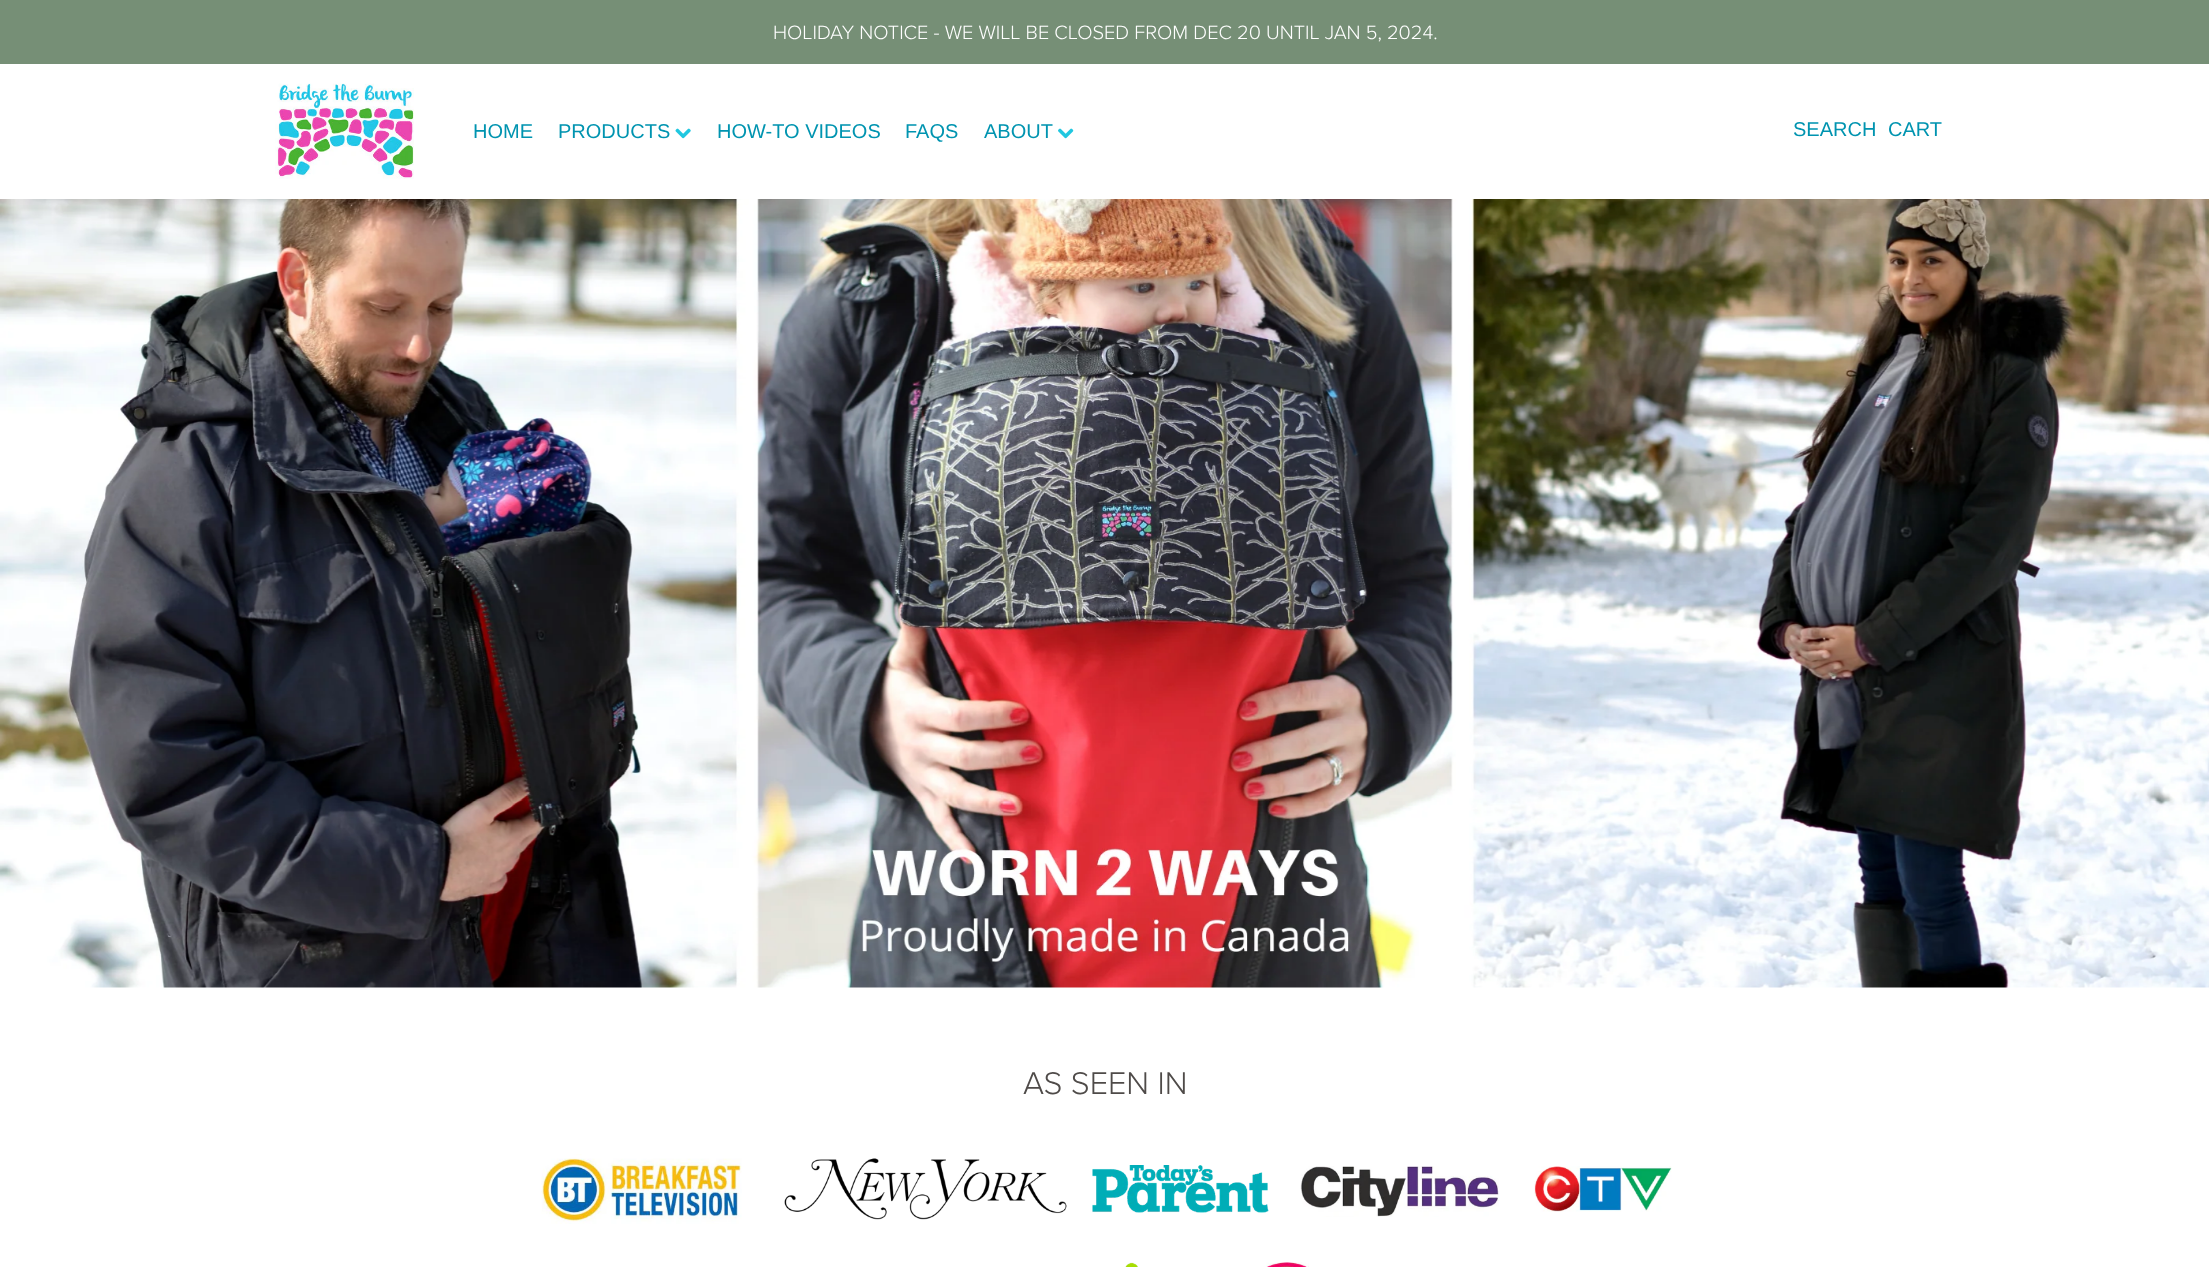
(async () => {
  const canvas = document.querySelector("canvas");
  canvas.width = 2209;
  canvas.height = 1267;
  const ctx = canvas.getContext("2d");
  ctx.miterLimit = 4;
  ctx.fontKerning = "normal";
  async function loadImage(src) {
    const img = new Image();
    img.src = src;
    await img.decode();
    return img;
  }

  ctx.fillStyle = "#ffffff";
  ctx.fillRect(0, 0, 2209, 1267);
  ctx.fillStyle = "#768f76";
  ctx.fillRect(0, 0, 2209, 64);
  ctx.drawImage(await loadImage("img/1.png"), 275, 83, 139, 96);
  ctx.drawImage(await loadImage("img/2.png"), 675, 128, 16, 11);
  ctx.drawImage(await loadImage("img/3.png"), 1058, 128, 16, 11);
  ctx.drawImage(await loadImage("img/4.png"), 0, 199, 2209, 789);
  ctx.drawImage(await loadImage("img/5.png"), 541, 1154, 201, 70);
  ctx.drawImage(await loadImage("img/6.png"), 784, 1158, 283, 62);
  ctx.drawImage(await loadImage("img/7.png"), 1092, 1165, 177, 48);
  ctx.drawImage(await loadImage("img/8.png"), 1300, 1166, 199, 51);
  ctx.drawImage(await loadImage("img/9.png"), 1534, 1166, 138, 46);
  ctx.drawImage(await loadImage("img/10.png"), 1125, 1262, 13, 5);
  ctx.drawImage(await loadImage("img/11.png"), 1266, 1262, 43, 5);
  ctx.font = "300 20px Proxima Nova";
  ctx.fillStyle = "#ffffff";
  ctx.fillText("HOLIDAY NOTICE - WE WILL BE CLOSED FROM DEC 20 UNTIL JAN 5, 2024.", 773, 39);
  ctx.font = "20px Liberation Sans";
  ctx.fillStyle = "#0094b0";
  for (const [text, x, y] of [
    ["HOME", 473, 138],
    ["PRODUCTS", 558, 138],
    ["HOW-TO VIDEOS", 717, 138],
    ["FAQS", 905, 138],
    ["ABOUT", 984, 138],
    ["SEARCH", 1793, 136],
    ["CART", 1888, 136],
  ]) {
    ctx.fillText(text, x, y);
  }
  ctx.font = "300 32.5px Proxima Nova";
  ctx.fillStyle = "#4f4b49";
  ctx.fillText("AS SEEN IN", 1023, 1094);
})();
